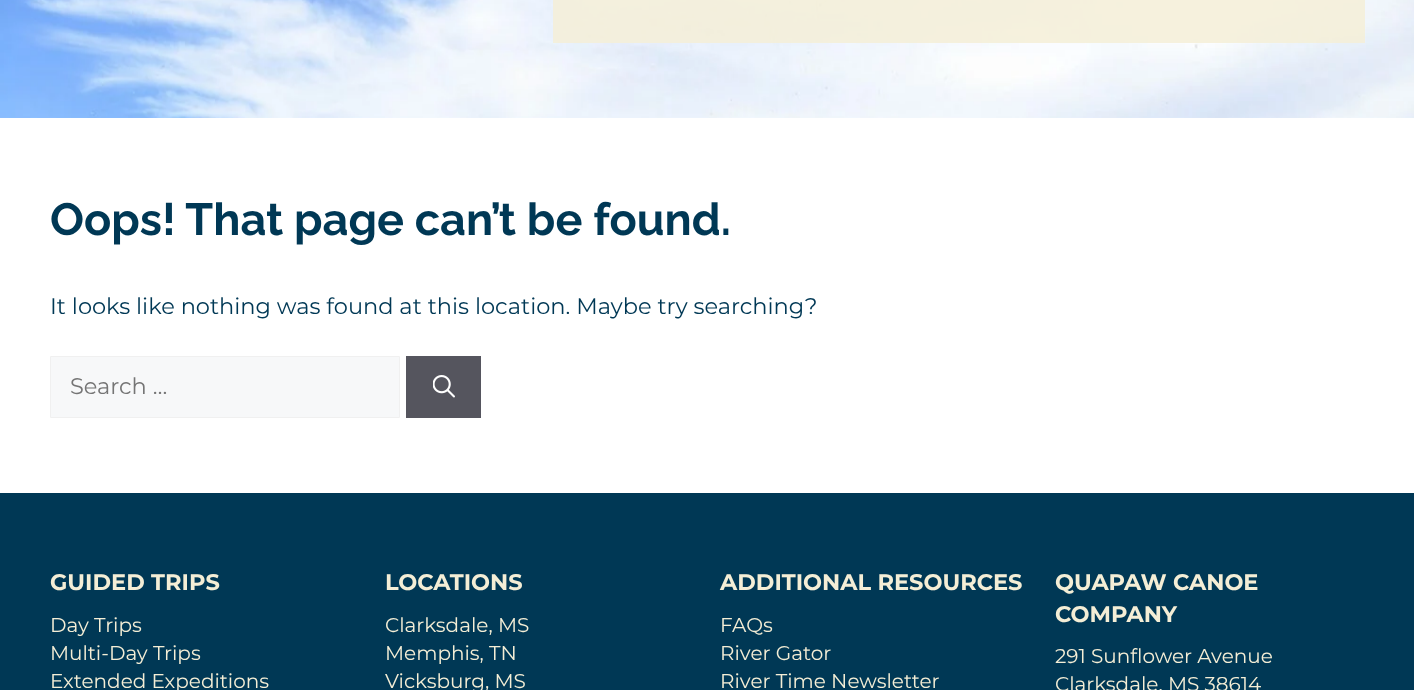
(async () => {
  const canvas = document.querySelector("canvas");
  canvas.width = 1414;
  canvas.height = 690;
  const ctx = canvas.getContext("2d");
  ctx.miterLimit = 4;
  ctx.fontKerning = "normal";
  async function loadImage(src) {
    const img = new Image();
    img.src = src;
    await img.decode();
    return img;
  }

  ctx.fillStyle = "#ffffff";
  ctx.fillRect(0, 0, 1414, 690);
  ctx.drawImage(await loadImage("img/1.png"), 0, 0, 1414, 118);
  ctx.fillStyle = "rgba(245, 239, 215, 0.85)";
  ctx.fillRect(553, 0, 812, 43);
  ctx.fillStyle = "#f7f8f9";
  ctx.beginPath();
  ctx.rect(50.5, 356.5, 349, 61);
  ctx.fill();
  ctx.strokeStyle = "#f0f0f0";
  ctx.stroke();
  ctx.fillStyle = "#55555e";
  ctx.fillRect(406, 356, 75, 62);
  ctx.drawImage(await loadImage("img/2.png"), 433, 375, 22, 23);
  ctx.fillStyle = "#003855";
  ctx.fillRect(0, 493, 1414, 197);
  ctx.font = "bold 45px Raleway";
  ctx.fillText("Oops! That page can’t be found.", 50, 235);
  ctx.font = "22.5px Montserrat";
  ctx.fillText("It looks like nothing was found at this location. Maybe try searching?", 50, 314);
  ctx.fillStyle = "#757575";
  ctx.fillText("Search …", 70, 394);
  ctx.font = "bold 22.5px Montserrat";
  ctx.fillStyle = "#f4eed6";
  ctx.fillText("GUIDED TRIPS", 50, 590);
  ctx.font = "20px Montserrat";
  for (const [text, x, y] of [
    ["Day Trips", 50, 632],
    ["Multi-Day Trips", 50, 660],
    ["Extended Expeditions", 50, 688],
  ]) {
    ctx.fillText(text, x, y);
  }
  ctx.font = "bold 22.5px Montserrat";
  ctx.fillText("LOCATIONS", 385, 590);
  ctx.font = "20px Montserrat";
  for (const [text, x, y] of [
    ["Clarksdale, MS", 385, 632],
    ["Memphis, TN", 385, 660],
    ["Vicksburg, MS", 385, 688],
  ]) {
    ctx.fillText(text, x, y);
  }
  ctx.font = "bold 22.5px Montserrat";
  ctx.fillText("ADDITIONAL RESOURCES", 720, 590);
  ctx.font = "20px Montserrat";
  for (const [text, x, y] of [
    ["FAQs", 720, 632],
    ["River Gator", 720, 660],
    ["River Time Newsletter", 720, 688],
  ]) {
    ctx.fillText(text, x, y);
  }
  ctx.font = "bold 22.5px Montserrat";
  ctx.fillText("QUAPAW CANOE", 1055, 590);
  ctx.fillText("COMPANY", 1055, 622);
  ctx.font = "20px Montserrat";
  ctx.fillText("291 Sunflower Avenue", 1055, 663);
  ctx.fillText("Clarksdale, MS 38614", 1055, 691);
})();
